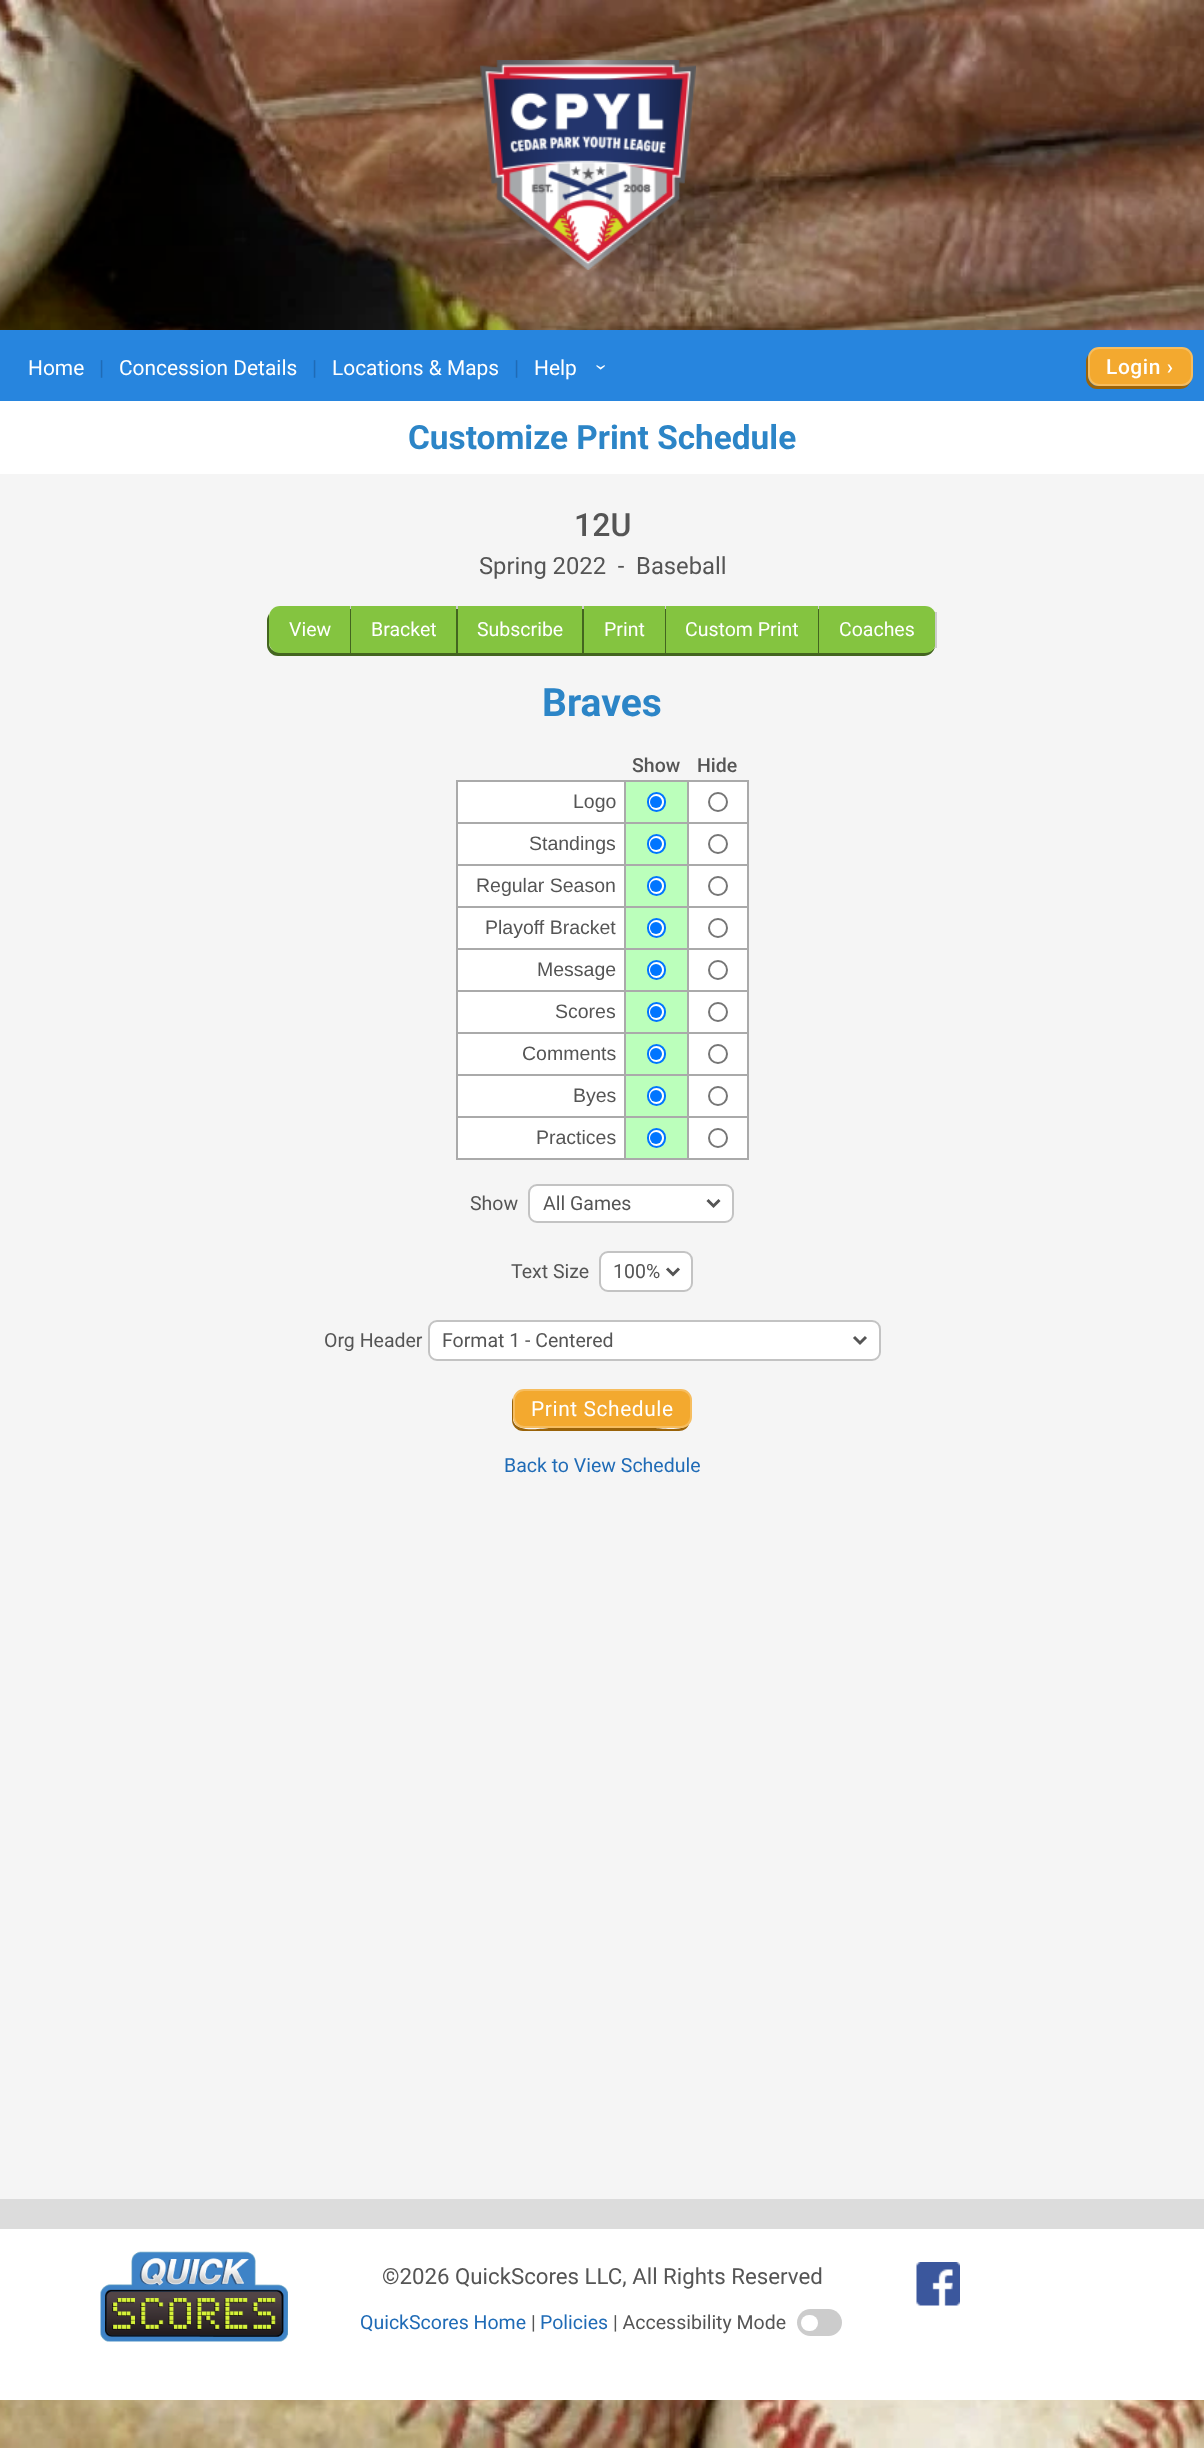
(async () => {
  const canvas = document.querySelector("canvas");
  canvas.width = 1204;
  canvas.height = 2448;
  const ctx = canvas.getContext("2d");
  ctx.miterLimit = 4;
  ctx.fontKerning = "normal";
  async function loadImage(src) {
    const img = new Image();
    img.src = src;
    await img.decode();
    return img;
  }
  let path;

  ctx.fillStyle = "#ffffff";
  ctx.fillRect(0, 0, 1204, 2448);
  ctx.drawImage(await loadImage("img/1.png"), 0, 0, 1204, 2448);
  ctx.drawImage(await loadImage("img/2.png"), 480, 60, 216, 210);
  ctx.fillStyle = "#2785de";
  ctx.fillRect(0, 330, 1204, 71);
  ctx.fillStyle = "#9a6309";
  path = new Path2D("M1088 355C1087 357 1086 359 1086 361V378C1086 384 1091 389 1097 389H1180C1185 389 1189 386 1191 381C1189 384 1186 386 1182 386H1098C1092 386 1088 381 1088 375Z");
  ctx.fill(path);
  ctx.fillStyle = "#f3a92f";
  ctx.beginPath();
  ctx.roundRect(1089, 348, 103, 37, 10);
  ctx.fill();
  ctx.strokeStyle = "#f6bd5f";
  ctx.lineWidth = 2;
  ctx.stroke();
  ctx.fillStyle = "#ffffff";
  ctx.fillRect(0, 401, 1204, 73);
  ctx.fillStyle = "#f5f5f5";
  ctx.fillRect(0, 474, 1204, 1725);
  ctx.fillStyle = "#43651f";
  path = new Path2D("M269 614C268 616 267 618 267 620V645C267 651 272 656 278 656H350V652H291C283 652 271 655 269 644Z");
  ctx.fill(path);
  ctx.fillStyle = "#84c440";
  ctx.beginPath();
  ctx.roundRect(269, 606, 82, 47, [11, 0, 0, 11]);
  ctx.fill();
  ctx.fillStyle = "#cccccc";
  ctx.fillRect(350, 606, 1, 3);
  ctx.fillStyle = "#43651f";
  path = new Path2D("M350 609V656H456V652H351V609Z");
  ctx.fill(path);
  ctx.fillStyle = "#84c440";
  ctx.fillRect(351, 606, 105, 47);
  ctx.fillStyle = "#cccccc";
  ctx.fillRect(456, 606, 2, 3);
  ctx.fillStyle = "#43651f";
  path = new Path2D("M456 609V656H582V652H458V609Z");
  ctx.fill(path);
  ctx.fillStyle = "#84c440";
  ctx.fillRect(458, 606, 124, 47);
  ctx.fillStyle = "#cccccc";
  ctx.fillRect(582, 606, 2, 3);
  ctx.fillStyle = "#43651f";
  path = new Path2D("M582 609V656H665V652H584V609Z");
  ctx.fill(path);
  ctx.fillStyle = "#84c440";
  ctx.fillRect(584, 606, 81, 47);
  ctx.fillStyle = "#cccccc";
  ctx.fillRect(665, 606, 1, 3);
  ctx.fillStyle = "#43651f";
  path = new Path2D("M665 609V656H818V652H666V609Z");
  ctx.fill(path);
  ctx.fillStyle = "#84c440";
  ctx.fillRect(666, 606, 152, 47);
  ctx.fillStyle = "#cccccc";
  ctx.fillRect(818, 606, 1, 3);
  ctx.fillStyle = "#43651f";
  path = new Path2D("M818 609V656H924C929 656 934 652 935 647C933 650 930 652 926 652H819V609Z");
  ctx.fill(path);
  ctx.fillStyle = "#84c440";
  ctx.beginPath();
  ctx.roundRect(819, 606, 117, 47, [0, 11, 11, 0]);
  ctx.fill();
  for (const [x, y, w, h, color] of [
    [935, 612, 2, 36, "#cccccc"],
    [458, 782, 166, 40, "#ffffff"],
    [687, 780, 62, 2, "#aaaaaa"],
    [687, 822, 62, 2, "#aaaaaa"],
    [687, 864, 62, 2, "#aaaaaa"],
    [687, 906, 62, 2, "#aaaaaa"],
    [687, 948, 62, 2, "#aaaaaa"],
    [687, 990, 62, 2, "#aaaaaa"],
    [687, 1032, 62, 2, "#aaaaaa"],
    [687, 1074, 62, 2, "#aaaaaa"],
    [687, 1116, 62, 2, "#aaaaaa"],
    [747, 1116, 2, 44, "#aaaaaa"],
    [687, 1158, 62, 2, "#aaaaaa"],
    [687, 1116, 2, 44, "#aaaaaa"],
    [624, 1116, 65, 2, "#aaaaaa"],
    [687, 1074, 2, 44, "#aaaaaa"],
    [624, 1074, 65, 2, "#aaaaaa"],
    [687, 1032, 2, 44, "#aaaaaa"],
    [624, 1032, 65, 2, "#aaaaaa"],
    [687, 990, 2, 44, "#aaaaaa"],
    [624, 990, 65, 2, "#aaaaaa"],
    [687, 948, 2, 44, "#aaaaaa"],
    [624, 948, 65, 2, "#aaaaaa"],
    [687, 906, 2, 44, "#aaaaaa"],
    [624, 906, 65, 2, "#aaaaaa"],
    [687, 864, 2, 44, "#aaaaaa"],
    [624, 864, 65, 2, "#aaaaaa"],
    [687, 822, 2, 44, "#aaaaaa"],
    [624, 822, 65, 2, "#aaaaaa"],
    [687, 780, 2, 44, "#aaaaaa"],
    [624, 780, 65, 2, "#aaaaaa"],
    [624, 1158, 65, 2, "#aaaaaa"],
    [624, 1116, 2, 44, "#aaaaaa"],
    [456, 1116, 170, 2, "#aaaaaa"],
    [624, 1074, 2, 44, "#aaaaaa"],
    [456, 1074, 170, 2, "#aaaaaa"],
    [624, 1032, 2, 44, "#aaaaaa"],
    [456, 1032, 170, 2, "#aaaaaa"],
    [624, 990, 2, 44, "#aaaaaa"],
    [456, 990, 170, 2, "#aaaaaa"],
    [624, 948, 2, 44, "#aaaaaa"],
    [456, 948, 170, 2, "#aaaaaa"],
    [624, 906, 2, 44, "#aaaaaa"],
    [456, 906, 170, 2, "#aaaaaa"],
    [624, 864, 2, 44, "#aaaaaa"],
    [456, 864, 170, 2, "#aaaaaa"],
    [624, 822, 2, 44, "#aaaaaa"],
    [456, 822, 170, 2, "#aaaaaa"],
    [624, 780, 2, 44, "#aaaaaa"],
    [456, 780, 170, 2, "#aaaaaa"],
    [456, 1158, 170, 2, "#aaaaaa"],
    [456, 1116, 2, 44, "#aaaaaa"],
    [456, 1074, 2, 44, "#aaaaaa"],
    [456, 1032, 2, 44, "#aaaaaa"],
    [456, 990, 2, 44, "#aaaaaa"],
    [456, 948, 2, 44, "#aaaaaa"],
    [456, 906, 2, 44, "#aaaaaa"],
    [456, 864, 2, 44, "#aaaaaa"],
    [456, 822, 2, 44, "#aaaaaa"],
    [456, 780, 2, 44, "#aaaaaa"],
    [626, 782, 61, 40, "#bbffbb"],
  ]) {
    ctx.fillStyle = color;
    ctx.fillRect(x, y, w, h);
  }
  ctx.fillStyle = "#ffffff";
  ctx.beginPath();
  ctx.roundRect(648, 793, 17, 18, 8.5);
  ctx.fill();
  ctx.strokeStyle = "#0075ff";
  ctx.stroke();
  ctx.fillStyle = "#0075ff";
  ctx.beginPath();
  ctx.arc(656, 802, 6, 0, Math.PI * 2);
  ctx.fill();
  for (const [x, y, w, h, color] of [
    [689, 782, 58, 40, "#ffffff"],
    [747, 1074, 2, 44, "#aaaaaa"],
    [747, 1032, 2, 44, "#aaaaaa"],
    [747, 990, 2, 44, "#aaaaaa"],
    [747, 948, 2, 44, "#aaaaaa"],
    [747, 906, 2, 44, "#aaaaaa"],
    [747, 864, 2, 44, "#aaaaaa"],
    [747, 822, 2, 44, "#aaaaaa"],
    [747, 780, 2, 44, "#aaaaaa"],
  ]) {
    ctx.fillStyle = color;
    ctx.fillRect(x, y, w, h);
  }
  ctx.beginPath();
  ctx.arc(718, 802, 9, 0, Math.PI * 2);
  ctx.strokeStyle = "#767676";
  ctx.stroke();
  ctx.fillStyle = "#ffffff";
  ctx.fillRect(458, 824, 166, 40);
  ctx.fillStyle = "#bbffbb";
  ctx.fillRect(626, 824, 61, 40);
  ctx.fillStyle = "#ffffff";
  ctx.beginPath();
  ctx.roundRect(648, 835, 17, 18, 8.5);
  ctx.fill();
  ctx.strokeStyle = "#0075ff";
  ctx.stroke();
  ctx.fillStyle = "#0075ff";
  ctx.beginPath();
  ctx.arc(656, 844, 6, 0, Math.PI * 2);
  ctx.fill();
  ctx.fillStyle = "#ffffff";
  ctx.fillRect(689, 824, 58, 40);
  ctx.beginPath();
  ctx.arc(718, 844, 9, 0, Math.PI * 2);
  ctx.strokeStyle = "#767676";
  ctx.stroke();
  ctx.fillRect(458, 866, 166, 40);
  ctx.fillStyle = "#bbffbb";
  ctx.fillRect(626, 866, 61, 40);
  ctx.fillStyle = "#ffffff";
  ctx.beginPath();
  ctx.roundRect(648, 877, 17, 18, 8.5);
  ctx.fill();
  ctx.strokeStyle = "#0075ff";
  ctx.stroke();
  ctx.fillStyle = "#0075ff";
  ctx.beginPath();
  ctx.arc(656, 886, 6, 0, Math.PI * 2);
  ctx.fill();
  ctx.fillStyle = "#ffffff";
  ctx.fillRect(689, 866, 58, 40);
  ctx.beginPath();
  ctx.arc(718, 886, 9, 0, Math.PI * 2);
  ctx.strokeStyle = "#767676";
  ctx.stroke();
  ctx.fillRect(458, 908, 166, 40);
  ctx.fillStyle = "#bbffbb";
  ctx.fillRect(626, 908, 61, 40);
  ctx.fillStyle = "#ffffff";
  ctx.beginPath();
  ctx.roundRect(648, 919, 17, 18, 8.5);
  ctx.fill();
  ctx.strokeStyle = "#0075ff";
  ctx.stroke();
  ctx.fillStyle = "#0075ff";
  ctx.beginPath();
  ctx.arc(656, 928, 6, 0, Math.PI * 2);
  ctx.fill();
  ctx.fillStyle = "#ffffff";
  ctx.fillRect(689, 908, 58, 40);
  ctx.beginPath();
  ctx.arc(718, 928, 9, 0, Math.PI * 2);
  ctx.strokeStyle = "#767676";
  ctx.stroke();
  ctx.fillRect(458, 950, 166, 40);
  ctx.fillStyle = "#bbffbb";
  ctx.fillRect(626, 950, 61, 40);
  ctx.fillStyle = "#ffffff";
  ctx.beginPath();
  ctx.roundRect(648, 961, 17, 18, 8.5);
  ctx.fill();
  ctx.strokeStyle = "#0075ff";
  ctx.stroke();
  ctx.fillStyle = "#0075ff";
  ctx.beginPath();
  ctx.arc(656, 970, 6, 0, Math.PI * 2);
  ctx.fill();
  ctx.fillStyle = "#ffffff";
  ctx.fillRect(689, 950, 58, 40);
  ctx.beginPath();
  ctx.arc(718, 970, 9, 0, Math.PI * 2);
  ctx.strokeStyle = "#767676";
  ctx.stroke();
  ctx.fillRect(458, 992, 166, 40);
  ctx.fillStyle = "#bbffbb";
  ctx.fillRect(626, 992, 61, 40);
  ctx.fillStyle = "#ffffff";
  ctx.beginPath();
  ctx.roundRect(648, 1003, 17, 18, 8.5);
  ctx.fill();
  ctx.strokeStyle = "#0075ff";
  ctx.stroke();
  ctx.fillStyle = "#0075ff";
  ctx.beginPath();
  ctx.arc(656, 1012, 6, 0, Math.PI * 2);
  ctx.fill();
  ctx.fillStyle = "#ffffff";
  ctx.fillRect(689, 992, 58, 40);
  ctx.beginPath();
  ctx.arc(718, 1012, 9, 0, Math.PI * 2);
  ctx.strokeStyle = "#767676";
  ctx.stroke();
  ctx.fillRect(458, 1034, 166, 40);
  ctx.fillStyle = "#bbffbb";
  ctx.fillRect(626, 1034, 61, 40);
  ctx.fillStyle = "#ffffff";
  ctx.beginPath();
  ctx.roundRect(648, 1045, 17, 18, 8.5);
  ctx.fill();
  ctx.strokeStyle = "#0075ff";
  ctx.stroke();
  ctx.fillStyle = "#0075ff";
  ctx.beginPath();
  ctx.arc(656, 1054, 6, 0, Math.PI * 2);
  ctx.fill();
  ctx.fillStyle = "#ffffff";
  ctx.fillRect(689, 1034, 58, 40);
  ctx.beginPath();
  ctx.arc(718, 1054, 9, 0, Math.PI * 2);
  ctx.strokeStyle = "#767676";
  ctx.stroke();
  ctx.fillRect(458, 1076, 166, 40);
  ctx.fillStyle = "#bbffbb";
  ctx.fillRect(626, 1076, 61, 40);
  ctx.fillStyle = "#ffffff";
  ctx.beginPath();
  ctx.roundRect(648, 1087, 17, 18, 8.5);
  ctx.fill();
  ctx.strokeStyle = "#0075ff";
  ctx.stroke();
  ctx.fillStyle = "#0075ff";
  ctx.beginPath();
  ctx.arc(656, 1096, 6, 0, Math.PI * 2);
  ctx.fill();
  ctx.fillStyle = "#ffffff";
  ctx.fillRect(689, 1076, 58, 40);
  ctx.beginPath();
  ctx.arc(718, 1096, 9, 0, Math.PI * 2);
  ctx.strokeStyle = "#767676";
  ctx.stroke();
  ctx.fillRect(458, 1118, 166, 40);
  ctx.fillStyle = "#bbffbb";
  ctx.fillRect(626, 1118, 61, 40);
  ctx.fillStyle = "#ffffff";
  ctx.beginPath();
  ctx.roundRect(648, 1129, 17, 18, 8.5);
  ctx.fill();
  ctx.strokeStyle = "#0075ff";
  ctx.stroke();
  ctx.fillStyle = "#0075ff";
  ctx.beginPath();
  ctx.arc(656, 1138, 6, 0, Math.PI * 2);
  ctx.fill();
  ctx.fillStyle = "#ffffff";
  ctx.fillRect(689, 1118, 58, 40);
  ctx.beginPath();
  ctx.arc(718, 1138, 9, 0, Math.PI * 2);
  ctx.strokeStyle = "#767676";
  ctx.stroke();
  ctx.beginPath();
  ctx.roundRect(529, 1185, 204, 37, 8);
  ctx.fill();
  ctx.strokeStyle = "#c3c3c3";
  ctx.stroke();
  path = new Path2D("M707.5 1200L713.5 1206L719.5 1200");
  ctx.strokeStyle = "#555555";
  ctx.lineWidth = 3;
  ctx.stroke(path);
  ctx.beginPath();
  ctx.roundRect(600, 1252, 92, 39, 8);
  ctx.fill();
  ctx.strokeStyle = "#c3c3c3";
  ctx.lineWidth = 2;
  ctx.stroke();
  path = new Path2D("M667 1268.5L673 1274.5L679 1268.5");
  ctx.strokeStyle = "#555555";
  ctx.lineWidth = 3;
  ctx.stroke(path);
  ctx.beginPath();
  ctx.roundRect(429, 1321, 451, 39, 8);
  ctx.fill();
  ctx.strokeStyle = "#c3c3c3";
  ctx.lineWidth = 2;
  ctx.stroke();
  path = new Path2D("M854 1337L860 1343L866 1337");
  ctx.strokeStyle = "#555555";
  ctx.lineWidth = 3;
  ctx.stroke(path);
  ctx.fillStyle = "#9a6309";
  path = new Path2D("M513 1398C512 1400 512 1401 512 1403V1420C512 1426 517 1431 523 1431H679C684 1431 688 1428 689 1424C683 1432 658 1428 655 1428H550C544 1428 516 1434 513 1420Z");
  ctx.fill(path);
  ctx.fillStyle = "#f3a92f";
  ctx.beginPath();
  ctx.roundRect(514, 1390, 177, 37, 10);
  ctx.fill();
  ctx.strokeStyle = "#f6bd5f";
  ctx.lineWidth = 2;
  ctx.stroke();
  ctx.fillStyle = "#ffffff";
  ctx.fillRect(0, 2229, 1204, 171);
  ctx.fillStyle = "#dcdcdc";
  ctx.fillRect(0, 2199, 1204, 30);
  ctx.drawImage(await loadImage("img/3.png"), 100, 2251, 188, 91);
  ctx.fillStyle = "#cccccc";
  ctx.beginPath();
  ctx.roundRect(797, 2309, 45, 27, 13.5);
  ctx.fill();
  ctx.fillStyle = "#ffffff";
  ctx.beginPath();
  ctx.roundRect(801, 2315, 17, 16, 8);
  ctx.fill();
  ctx.drawImage(await loadImage("img/4.png"), 916, 2262, 44, 44);
  ctx.font = "20.9px Roboto";
  ctx.fillText("Home", 28, 375);
  ctx.fillStyle = "#1f6bb6";
  ctx.fillText("|", 99, 375);
  ctx.fillStyle = "#ffffff";
  ctx.fillText("Concession Details", 119, 375);
  ctx.fillStyle = "#1f6bb6";
  ctx.fillText("|", 312, 375);
  ctx.fillStyle = "#ffffff";
  ctx.fillText("Locations & Maps", 332, 375);
  ctx.fillStyle = "#1f6bb6";
  ctx.fillText("|", 514, 375);
  ctx.fillStyle = "#ffffff";
  ctx.fillText("Help", 534, 375);
  ctx.save();
  ctx.translate(595, 364);
  ctx.rotate(90 * Math.PI / 180);
  ctx.fillText("›", 0, 0);
  ctx.restore();
  ctx.letterSpacing = "0.6px";
  ctx.font = "500 20.9px Roboto";
  ctx.fillText("Login ›", 1106, 374);
  ctx.letterSpacing = "0px";
  ctx.font = "bold 33.4px Roboto";
  ctx.fillStyle = "#2c85c7";
  ctx.fillText("Customize Print Schedule", 408, 449);
  ctx.font = "500 32px Roboto";
  ctx.fillStyle = "#555555";
  ctx.fillText("12U", 574, 536);
  ctx.font = "23.75px Roboto";
  ctx.fillText("Spring 2022  -  Baseball", 479, 574);
  ctx.font = "19.5px Roboto";
  ctx.fillStyle = "#ffffff";
  for (const [text, x, y] of [
    ["View", 289, 636],
    ["Bracket", 371, 636],
    ["Subscribe", 477, 636],
    ["Print", 604, 636],
    ["Custom Print", 685, 636],
    ["Coaches", 839, 636],
  ]) {
    ctx.fillText(text, x, y);
  }
  ctx.font = "bold 39px Roboto";
  ctx.fillStyle = "#2c85c7";
  ctx.fillText("Braves", 542, 716);
  ctx.font = "500 19.5px Roboto";
  ctx.fillStyle = "#555555";
  ctx.fillText("Show", 632, 772);
  ctx.fillText("Hide", 697, 772);
  ctx.font = "19.5px Liberation Sans";
  for (const [text, x, y] of [
    ["Logo", 573, 808],
    ["Standings", 529, 850],
    ["Regular Season", 476, 892],
    ["Playoff Bracket", 485, 934],
    ["Message", 537, 976],
    ["Scores", 555, 1018],
    ["Comments", 522, 1060],
    ["Byes", 573, 1102],
    ["Practices", 536, 1144],
  ]) {
    ctx.fillText(text, x, y);
  }
  ctx.font = "19.5px Roboto";
  for (const [text, x, y] of [
    ["Show", 470, 1210],
    ["All Games", 543, 1210],
    ["Text Size", 511, 1278],
    ["100%", 613, 1278],
    ["Org Header", 324, 1347],
    ["Format 1 - Centered", 442, 1347],
  ]) {
    ctx.fillText(text, x, y);
  }
  ctx.letterSpacing = "0.6px";
  ctx.font = "20.9px Roboto";
  ctx.fillStyle = "#ffffff";
  ctx.fillText("Print Schedule", 531, 1416);
  ctx.letterSpacing = "0px";
  ctx.font = "19.5px Roboto";
  ctx.fillStyle = "#1f6bb6";
  ctx.fillText("Back to View Schedule", 504, 1472);
  ctx.font = "22.25px Roboto";
  ctx.fillStyle = "#555555";
  ctx.fillText("©2026 QuickScores LLC, All Rights Reserved", 382, 2284);
  ctx.font = "19.5px Roboto";
  ctx.fillStyle = "#1f6bb6";
  ctx.fillText("QuickScores Home", 360, 2329);
  ctx.fillStyle = "#555555";
  ctx.fillText("|", 531, 2329);
  ctx.fillStyle = "#1f6bb6";
  ctx.fillText("Policies", 540, 2329);
  ctx.fillStyle = "#555555";
  ctx.fillText("| Accessibility Mode", 613, 2329);
})();
